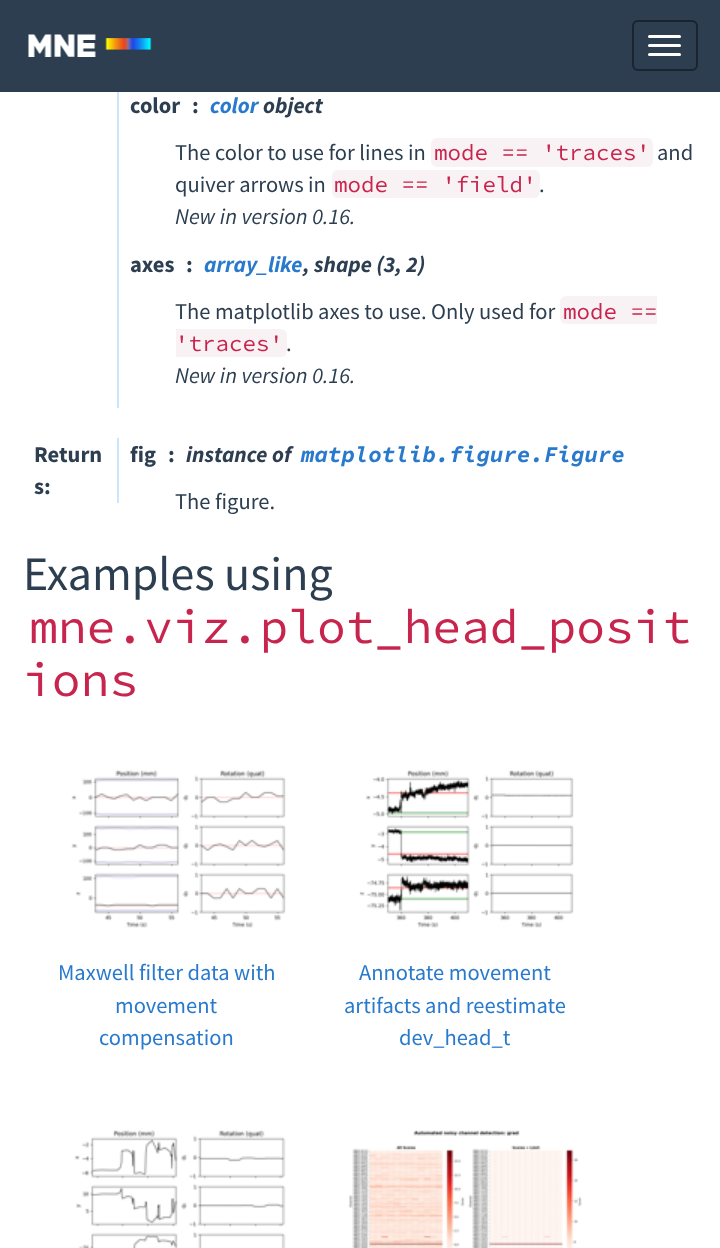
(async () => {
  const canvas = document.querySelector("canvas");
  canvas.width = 720;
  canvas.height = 1248;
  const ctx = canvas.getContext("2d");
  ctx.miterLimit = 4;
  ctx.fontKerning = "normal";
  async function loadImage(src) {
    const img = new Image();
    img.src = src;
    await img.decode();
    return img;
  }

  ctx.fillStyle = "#ffffff";
  ctx.fillRect(0, 0, 720, 1248);
  ctx.fillStyle = "#2c3e50";
  ctx.fillRect(0, 0, 720, 92);
  ctx.drawImage(await loadImage("img/1.png"), 28, 34, 124, 23);
  ctx.beginPath();
  ctx.roundRect(633, 21, 64, 49, 5);
  ctx.strokeStyle = "#1a242f";
  ctx.lineWidth = 2;
  ctx.stroke();
  ctx.fillStyle = "#ffffff";
  ctx.beginPath();
  ctx.roundRect(648, 35, 33, 3, 1.5);
  ctx.fill();
  ctx.beginPath();
  ctx.roundRect(648, 44, 33, 3, 1.5);
  ctx.fill();
  ctx.beginPath();
  ctx.roundRect(648, 53, 33, 3, 1.5);
  ctx.fill();
  ctx.fillStyle = "#cce6ff";
  ctx.fillRect(117, 92, 2, 316);
  ctx.fillStyle = "#f9f2f4";
  ctx.beginPath();
  ctx.roundRect(431, 138, 57, 29, [6, 0, 0, 6]);
  ctx.fill();
  ctx.fillRect(488, 138, 54, 29);
  ctx.beginPath();
  ctx.roundRect(542, 138, 111, 29, [0, 6, 6, 0]);
  ctx.fill();
  ctx.beginPath();
  ctx.roundRect(332, 170, 57, 28, [6, 0, 0, 6]);
  ctx.fill();
  ctx.fillRect(389, 170, 54, 28);
  ctx.beginPath();
  ctx.roundRect(443, 170, 97, 28, [0, 6, 6, 0]);
  ctx.fill();
  ctx.beginPath();
  ctx.roundRect(560, 296, 57, 28, [6, 0, 0, 6]);
  ctx.fill();
  ctx.fillRect(617, 296, 40, 28);
  ctx.beginPath();
  ctx.roundRect(176, 329, 111, 28, [0, 6, 6, 0]);
  ctx.fill();
  ctx.fillStyle = "#cce6ff";
  ctx.fillRect(117, 438, 2, 65);
  ctx.drawImage(await loadImage("img/2.png"), 71, 769, 215, 159);
  ctx.drawImage(await loadImage("img/3.png"), 359, 769, 215, 159);
  ctx.drawImage(await loadImage("img/4.png"), 74, 1129, 212, 119);
  ctx.drawImage(await loadImage("img/5.png"), 348, 1130, 234, 118);
  ctx.font = "bold 22.5px Source Sans Pro";
  ctx.fillStyle = "#2c3e50";
  ctx.fillText("color", 130, 113);
  ctx.fillText(":", 192, 113);
  ctx.font = "italic bold 22.5px Source Sans Pro";
  ctx.fillStyle = "#297acc";
  ctx.fillText("color", 210, 113);
  ctx.fillStyle = "#2c3e50";
  ctx.fillText("object", 263, 113);
  ctx.font = "22.5px Source Sans Pro";
  ctx.fillText("The color to use for lines in", 175, 160);
  ctx.font = "22.5px Source Code Pro";
  ctx.fillStyle = "#c7254e";
  ctx.fillText("mode == 'traces'", 434, 160);
  ctx.font = "22.5px Source Sans Pro";
  ctx.fillStyle = "#2c3e50";
  ctx.fillText("and", 657, 160);
  ctx.fillText("quiver arrows in", 175, 192);
  ctx.font = "22.5px Source Code Pro";
  ctx.fillStyle = "#c7254e";
  ctx.fillText("mode == 'field'", 334, 192);
  ctx.font = "22.5px Source Sans Pro";
  ctx.fillStyle = "#2c3e50";
  ctx.fillText(".", 539, 192);
  ctx.font = "italic 22.5px Source Sans Pro";
  ctx.fillText("New in version 0.16.", 175, 224);
  ctx.font = "bold 22.5px Source Sans Pro";
  ctx.fillText("axes", 130, 272);
  ctx.fillText(":", 186, 272);
  ctx.font = "italic bold 22.5px Source Sans Pro";
  ctx.fillStyle = "#297acc";
  ctx.fillText("array_like", 204, 272);
  ctx.fillStyle = "#2c3e50";
  ctx.fillText(", shape (3, 2)", 303, 272);
  ctx.font = "22.5px Source Sans Pro";
  ctx.fillText("The matplotlib axes to use. Only used for", 175, 319);
  ctx.font = "22.5px Source Code Pro";
  ctx.fillStyle = "#c7254e";
  ctx.fillText("mode ==", 563, 319);
  ctx.fillText("'traces'", 175, 351);
  ctx.font = "22.5px Source Sans Pro";
  ctx.fillStyle = "#2c3e50";
  ctx.fillText(".", 286, 351);
  ctx.font = "italic 22.5px Source Sans Pro";
  ctx.fillText("New in version 0.16.", 175, 383);
  ctx.font = "bold 22.5px Source Sans Pro";
  for (const [text, x, y] of [
    ["Return", 34, 462],
    ["s:", 34, 494],
    ["fig", 130, 462],
    [":", 168, 462],
  ]) {
    ctx.fillText(text, x, y);
  }
  ctx.font = "italic bold 22.5px Source Sans Pro";
  ctx.fillText("instance of", 186, 462);
  ctx.font = "italic bold 22.5px Source Code Pro";
  ctx.fillStyle = "#297acc";
  ctx.fillText("matplotlib.figure.Figure", 301, 462);
  ctx.font = "22.5px Source Sans Pro";
  ctx.fillStyle = "#2c3e50";
  ctx.fillText("The figure.", 175, 509);
  ctx.font = "48px Source Sans Pro";
  ctx.fillText("Examples using", 23, 590);
  ctx.font = "48px Source Code Pro";
  ctx.fillStyle = "#c7254e";
  ctx.fillText("mne.viz.plot_head_posit", 29, 643);
  ctx.fillText("ions", 23, 696);
  ctx.font = "22.5px Source Sans Pro";
  ctx.fillStyle = "#297acc";
  for (const [text, x, y] of [
    ["Maxwell filter data with", 58, 980],
    ["movement", 115, 1013],
    ["compensation", 99, 1045],
    ["Annotate movement", 359, 980],
    ["artifacts and reestimate", 344, 1013],
    ["dev_head_t", 399, 1045],
  ]) {
    ctx.fillText(text, x, y);
  }
})();
